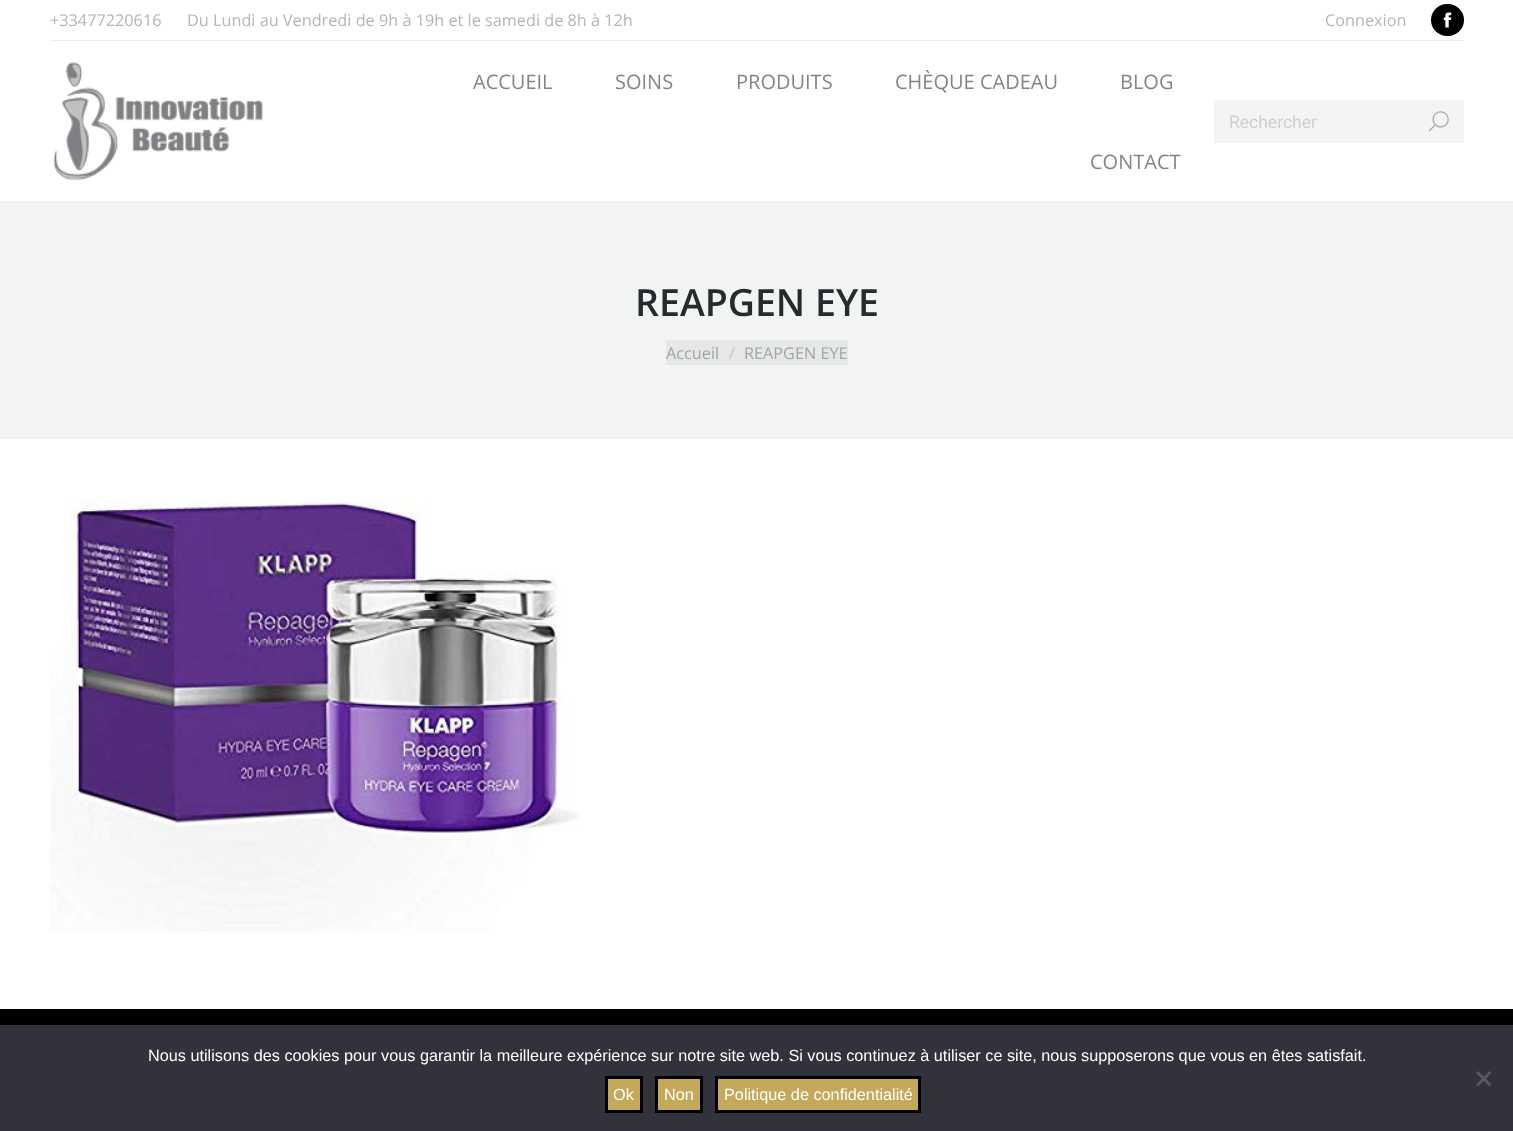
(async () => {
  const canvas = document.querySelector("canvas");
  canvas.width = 1513;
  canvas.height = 1131;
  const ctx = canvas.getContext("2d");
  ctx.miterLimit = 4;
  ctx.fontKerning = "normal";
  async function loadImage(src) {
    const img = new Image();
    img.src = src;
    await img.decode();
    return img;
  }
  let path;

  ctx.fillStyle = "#ffffff";
  ctx.fillRect(0, 0, 1513, 1131);
  ctx.fillStyle = "#000000";
  ctx.beginPath();
  ctx.roundRect(1431, 4, 33, 32, 16);
  ctx.fill();
  ctx.drawImage(await loadImage("img/1.png"), 1443, 12, 9, 16);
  ctx.fillStyle = "#ededed";
  ctx.fillRect(50, 40, 1414, 1);
  ctx.drawImage(await loadImage("img/2.png"), 53, 62, 210, 119);
  ctx.fillStyle = "#f4f4f4";
  ctx.fillRect(1214, 100, 250, 43);
  ctx.drawImage(await loadImage("img/3.png"), 1428, 111, 21, 21);
  ctx.fillStyle = "#f2f3f3";
  ctx.fillRect(0, 201, 1513, 238);
  ctx.fillStyle = "#e6e7e7";
  ctx.fillRect(666, 340, 182, 25);
  ctx.drawImage(await loadImage("img/4.png"), 50, 501, 530, 431);
  ctx.fillStyle = "#000000";
  ctx.fillRect(0, 1009, 1513, 16);
  ctx.fillStyle = "#32323a";
  ctx.fillRect(0, 1025, 1513, 106);
  ctx.fillStyle = "#59595d";
  path = new Path2D("M1489.5 1071L1491.5 1073L1478 1086.5L1476 1084.5Z");
  ctx.fill(path);
  path = new Path2D("M1476 1073L1478 1071L1491.5 1084.5L1489.5 1086.5Z");
  ctx.fill(path);
  ctx.fillStyle = "#c3a959";
  ctx.beginPath();
  ctx.rect(606.5, 1077.5, 35, 34);
  ctx.fill();
  ctx.strokeStyle = "#000000";
  ctx.lineWidth = 3;
  ctx.stroke();
  ctx.beginPath();
  ctx.rect(656.5, 1077.5, 45, 34);
  ctx.fill();
  ctx.stroke();
  ctx.beginPath();
  ctx.rect(716.5, 1077.5, 203, 34);
  ctx.fill();
  ctx.stroke();
  ctx.font = "16.25px Open Sans";
  ctx.fillStyle = "#b3b5b6";
  for (const [text, x, y] of [
    ["+33477220616", 50, 26],
    ["Du Lundi au Vendredi de 9h à 19h et le samedi de 8h à 12h", 187, 26],
    ["Connexion", 1325, 26],
  ]) {
    ctx.fillText(text, x, y);
  }
  ctx.font = "20px Open Sans";
  ctx.fillStyle = "#848484";
  for (const [text, x, y] of [
    ["ACCUEIL", 473, 89],
    ["SOINS", 615, 89],
    ["PRODUITS", 736, 89],
    ["CHÈQUE CADEAU", 895, 89],
    ["BLOG", 1120, 89],
    ["CONTACT", 1090, 169],
  ]) {
    ctx.fillText(text, x, y);
  }
  ctx.font = "17.5px Roboto";
  ctx.fillStyle = "#cfcfcf";
  ctx.fillText("Rechercher", 1229, 128);
  ctx.font = "600 37.5px Open Sans";
  ctx.fillStyle = "#262b2e";
  ctx.fillText("REAPGEN EYE", 635, 316);
  ctx.font = "16.25px Open Sans";
  ctx.fillStyle = "#a2a5a6";
  ctx.fillText("Accueil", 666, 359);
  ctx.fillStyle = "#c4c6c7";
  ctx.fillText("/", 729, 359);
  ctx.fillStyle = "#a2a5a6";
  ctx.fillText("REAPGEN EYE", 744, 359);
  ctx.font = "16.25px Liberation Sans";
  ctx.fillStyle = "#ffffff";
  for (const [text, x, y] of [
    ["Nous utilisons des cookies pour vous garantir la meilleure expérience sur notre site web. Si vous continuez à utiliser ce site, nous supposerons que vous en êtes satisfait.", 148, 1061],
    ["Ok", 613, 1100],
    ["Non", 664, 1100],
    ["Politique de confidentialité", 724, 1100],
  ]) {
    ctx.fillText(text, x, y);
  }
})();
